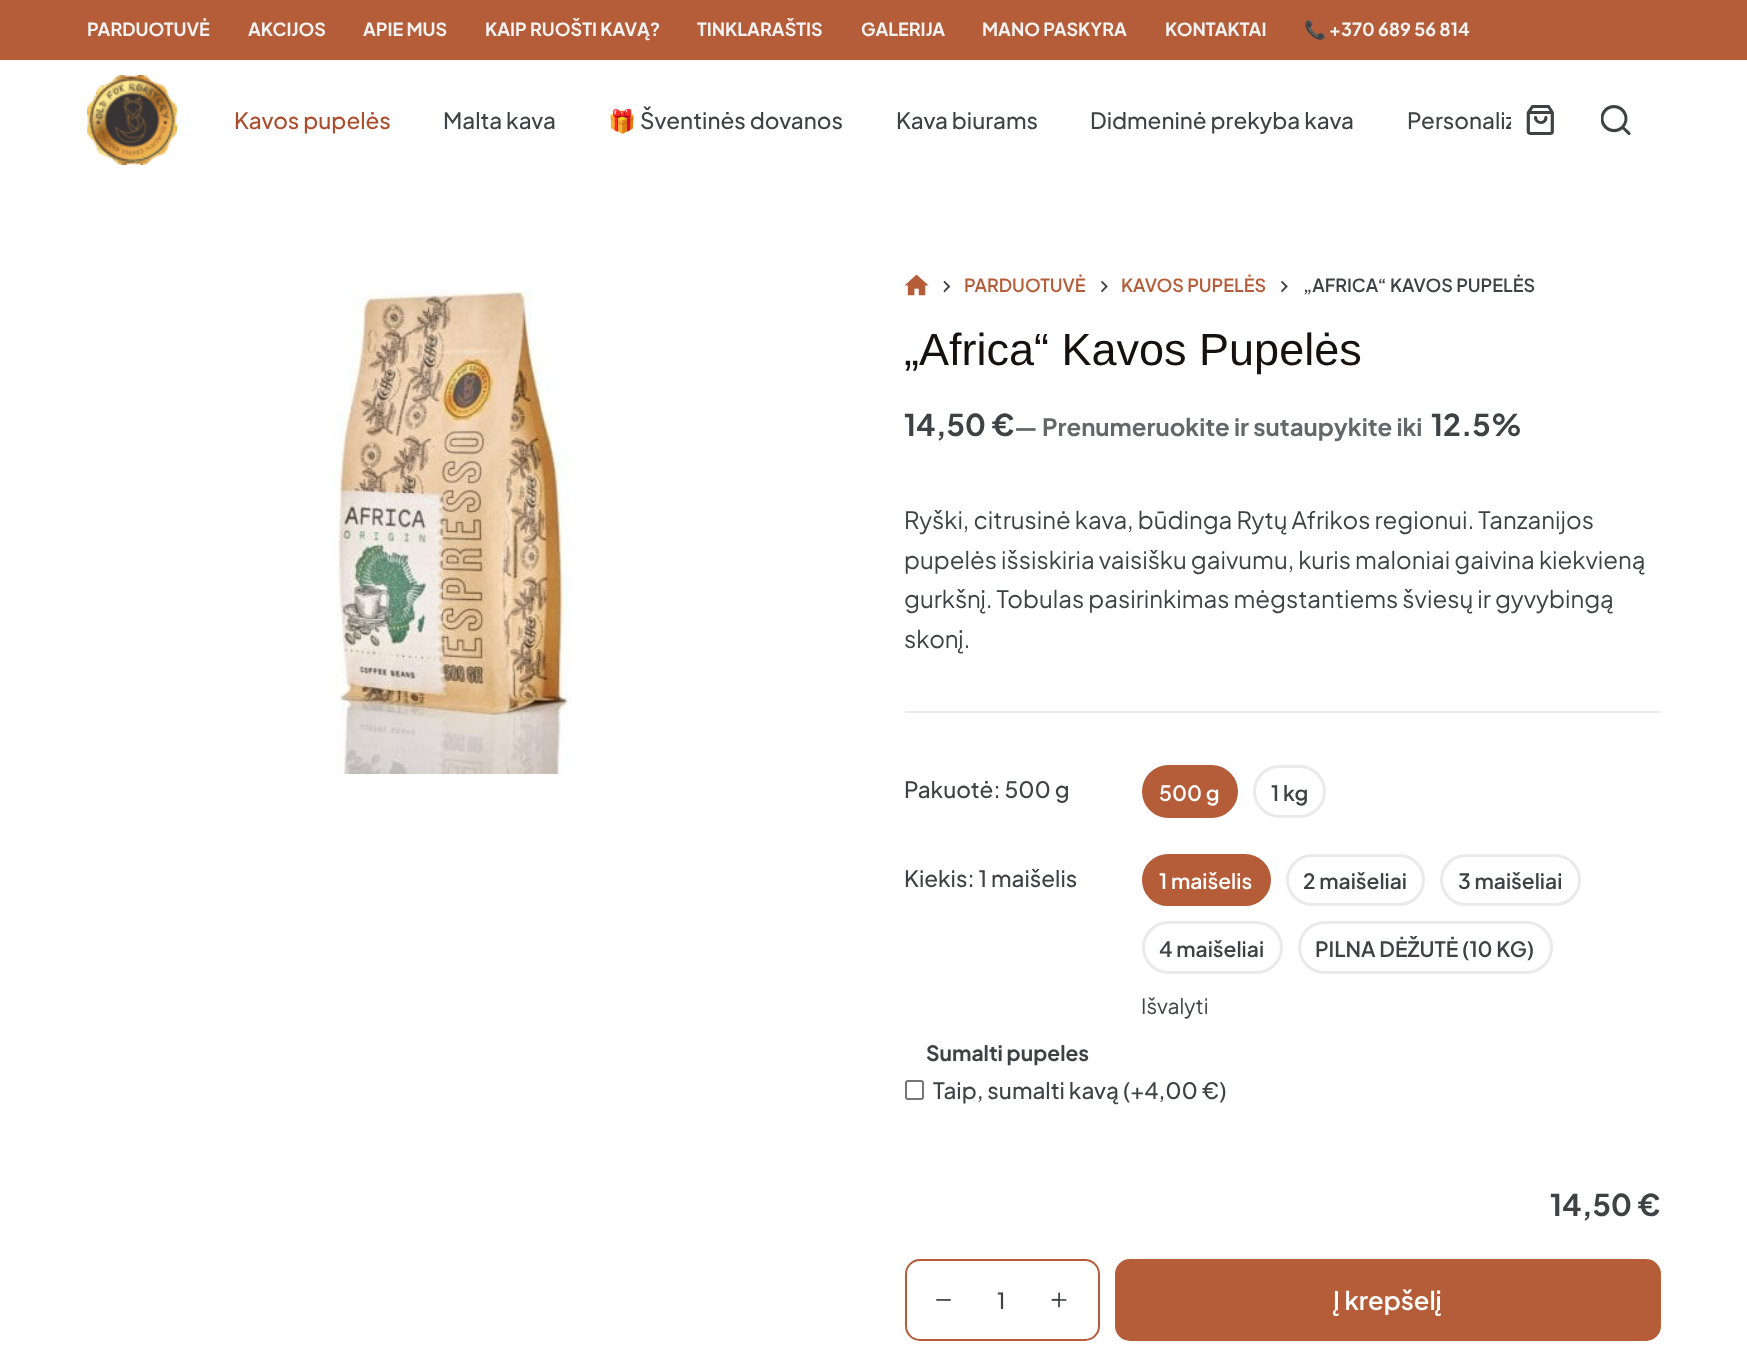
(async () => {
  const canvas = document.querySelector("canvas");
  canvas.width = 1747;
  canvas.height = 1364;
  const ctx = canvas.getContext("2d");
  ctx.miterLimit = 4;
  ctx.fontKerning = "normal";
  async function loadImage(src) {
    const img = new Image();
    img.src = src;
    await img.decode();
    return img;
  }

  ctx.fillStyle = "#ffffff";
  ctx.fillRect(0, 0, 1747, 1364);
  ctx.fillStyle = "#b55d38";
  ctx.fillRect(0, 0, 1747, 60);
  ctx.drawImage(await loadImage("img/1.png"), 87, 75, 90, 90);
  ctx.drawImage(await loadImage("img/2.png"), 1526, 105, 28, 30);
  ctx.drawImage(await loadImage("img/3.png"), 1601, 105, 30, 30);
  ctx.drawImage(await loadImage("img/4.png"), 331, 290, 241, 484);
  ctx.drawImage(await loadImage("img/5.png"), 905, 274, 24, 22);
  ctx.drawImage(await loadImage("img/6.png"), 943, 281, 8, 12);
  ctx.drawImage(await loadImage("img/7.png"), 1101, 281, 7, 12);
  ctx.drawImage(await loadImage("img/7.png"), 1281, 281, 7, 12);
  ctx.fillStyle = "#eaeaec";
  ctx.fillRect(905, 711, 756, 2);
  ctx.fillStyle = "#b55d38";
  ctx.beginPath();
  ctx.roundRect(1143.5, 766.5, 93, 50, 25);
  ctx.fill();
  ctx.strokeStyle = "#b55d38";
  ctx.lineWidth = 3;
  ctx.stroke();
  ctx.beginPath();
  ctx.roundRect(1254.5, 766.5, 70, 50, 25);
  ctx.strokeStyle = "#eaeaec";
  ctx.stroke();
  ctx.beginPath();
  ctx.roundRect(1143.5, 855.5, 126, 49, 24.5);
  ctx.fill();
  ctx.strokeStyle = "#b55d38";
  ctx.stroke();
  ctx.beginPath();
  ctx.roundRect(1287.5, 855.5, 136, 49, 24.5);
  ctx.strokeStyle = "#eaeaec";
  ctx.stroke();
  ctx.beginPath();
  ctx.roundRect(1441.5, 855.5, 138, 49, 24.5);
  ctx.stroke();
  ctx.beginPath();
  ctx.roundRect(1143.5, 922.5, 138, 50, 25);
  ctx.stroke();
  ctx.beginPath();
  ctx.roundRect(1299.5, 922.5, 252, 50, 25);
  ctx.stroke();
  ctx.beginPath();
  ctx.roundRect(906, 1081, 17, 18, 2);
  ctx.strokeStyle = "#767676";
  ctx.lineWidth = 2;
  ctx.stroke();
  ctx.beginPath();
  ctx.roundRect(906, 1260, 193, 80, 14);
  ctx.strokeStyle = "#b55d38";
  ctx.stroke();
  ctx.drawImage(await loadImage("img/8.png"), 936, 1299, 15, 2);
  ctx.drawImage(await loadImage("img/9.png"), 1051, 1292, 16, 16);
  ctx.beginPath();
  ctx.roundRect(1115, 1259, 546, 82, 15);
  ctx.fill();
  ctx.font = "bold 18px Plus Jakarta Sans";
  ctx.fillStyle = "#f2f2f2";
  for (const [text, x, y] of [
    ["PARDUOTUVĖ", 87, 36],
    ["AKCIJOS", 248, 36],
    ["APIE MUS", 363, 36],
    ["KAIP RUOŠTI KAVĄ?", 485, 36],
    ["TINKLARAŠTIS", 697, 36],
    ["GALERIJA", 861, 36],
    ["MANO PASKYRA", 982, 36],
    ["KONTAKTAI", 1165, 36],
  ]) {
    ctx.fillText(text, x, y);
  }
  ctx.font = "bold 18px Noto Color Emoji";
  ctx.fillText("📞", 1304, 36);
  ctx.font = "bold 18px Plus Jakarta Sans";
  ctx.fillText("+370 689 56 814", 1329, 36);
  ctx.font = "500 22.5px Plus Jakarta Sans";
  ctx.fillStyle = "#ab4c2c";
  ctx.fillText("Kavos pupelės", 234, 129);
  ctx.fillStyle = "#3f4245";
  ctx.fillText("Malta kava", 443, 129);
  ctx.font = "22.5px Noto Color Emoji";
  ctx.fillText("🎁", 608, 129);
  ctx.font = "500 22.5px Plus Jakarta Sans";
  for (const [text, x, y] of [
    ["Šventinės dovanos", 640, 129],
    ["Kava biurams", 896, 129],
    ["Didmeninė prekyba kava", 1090, 129],
  ]) {
    ctx.fillText(text, x, y);
  }
  ctx.save();
  ctx.beginPath();
  ctx.rect(207, 60, 1304, 120);
  ctx.clip();
  ctx.fillText("Personaliz", 1407, 129);
  ctx.restore();
  ctx.font = "600 18px Plus Jakarta Sans";
  ctx.fillStyle = "#b55d38";
  ctx.fillText("PARDUOTUVĖ", 964, 292);
  ctx.fillText("KAVOS PUPELĖS", 1121, 292);
  ctx.fillStyle = "#3f4245";
  ctx.fillText("„AFRICA“ KAVOS PUPELĖS", 1303, 292);
  ctx.font = "45px Liberation Sans";
  ctx.fillStyle = "#171010";
  ctx.fillText("„Africa“ Kavos Pupelės", 904, 365);
  ctx.font = "bold 30px Plus Jakarta Sans";
  ctx.fillStyle = "#3f4245";
  ctx.fillText("14,50 €", 904, 436);
  ctx.font = "bold 24px Plus Jakarta Sans";
  ctx.fillStyle = "#65686a";
  ctx.fillText("— Prenumeruokite ir sutaupykite iki", 1014, 436);
  ctx.font = "bold 30px Plus Jakarta Sans";
  ctx.fillStyle = "#3f4245";
  ctx.fillText("12.5%", 1431, 436);
  ctx.font = "24px Plus Jakarta Sans";
  for (const [text, x, y] of [
    ["Ryški, citrusinė kava, būdinga Rytų Afrikos regionui. Tanzanijos", 904, 529],
    ["pupelės išsiskiria vaisišku gaivumu, kuris maloniai gaivina kiekvieną", 904, 569],
    ["gurkšnį. Tobulas pasirinkimas mėgstantiems šviesų ir gyvybingą", 904, 608],
    ["skonį.", 904, 648],
  ]) {
    ctx.fillText(text, x, y);
  }
  ctx.font = "500 22.5px Plus Jakarta Sans";
  ctx.fillText("Pakuotė: 500 g", 904, 798);
  ctx.font = "600 21px Plus Jakarta Sans";
  ctx.fillStyle = "#ffffff";
  ctx.fillText("500 g", 1159, 801);
  ctx.fillStyle = "#3f4245";
  ctx.fillText("1 kg", 1271, 801);
  ctx.font = "500 22.5px Plus Jakarta Sans";
  ctx.fillText("Kiekis: 1 maišelis", 904, 887);
  ctx.font = "600 21px Plus Jakarta Sans";
  ctx.fillStyle = "#ffffff";
  ctx.fillText("1 maišelis", 1159, 889);
  ctx.fillStyle = "#3f4245";
  for (const [text, x, y] of [
    ["2 maišeliai", 1303, 889],
    ["3 maišeliai", 1458, 889],
    ["4 maišeliai", 1159, 957],
    ["PILNA DĖŽUTĖ (10 KG)", 1315, 957],
  ]) {
    ctx.fillText(text, x, y);
  }
  ctx.font = "21px Plus Jakarta Sans";
  ctx.fillText("Išvalyti", 1141, 1014);
  ctx.font = "bold 21px Plus Jakarta Sans";
  ctx.fillText("Sumalti pupeles", 926, 1061);
  ctx.font = "500 22.5px Plus Jakarta Sans";
  ctx.fillText("Taip, sumalti kavą (+4,00 €)", 933, 1099);
  ctx.font = "bold 30px Plus Jakarta Sans";
  ctx.fillText("14,50 €", 1550, 1216);
  ctx.font = "500 22px Plus Jakarta Sans";
  ctx.fillText("1", 997, 1309);
  ctx.font = "600 25.5px Plus Jakarta Sans";
  ctx.fillStyle = "#ffffff";
  ctx.fillText("Į krepšelį", 1333, 1310);
})();
